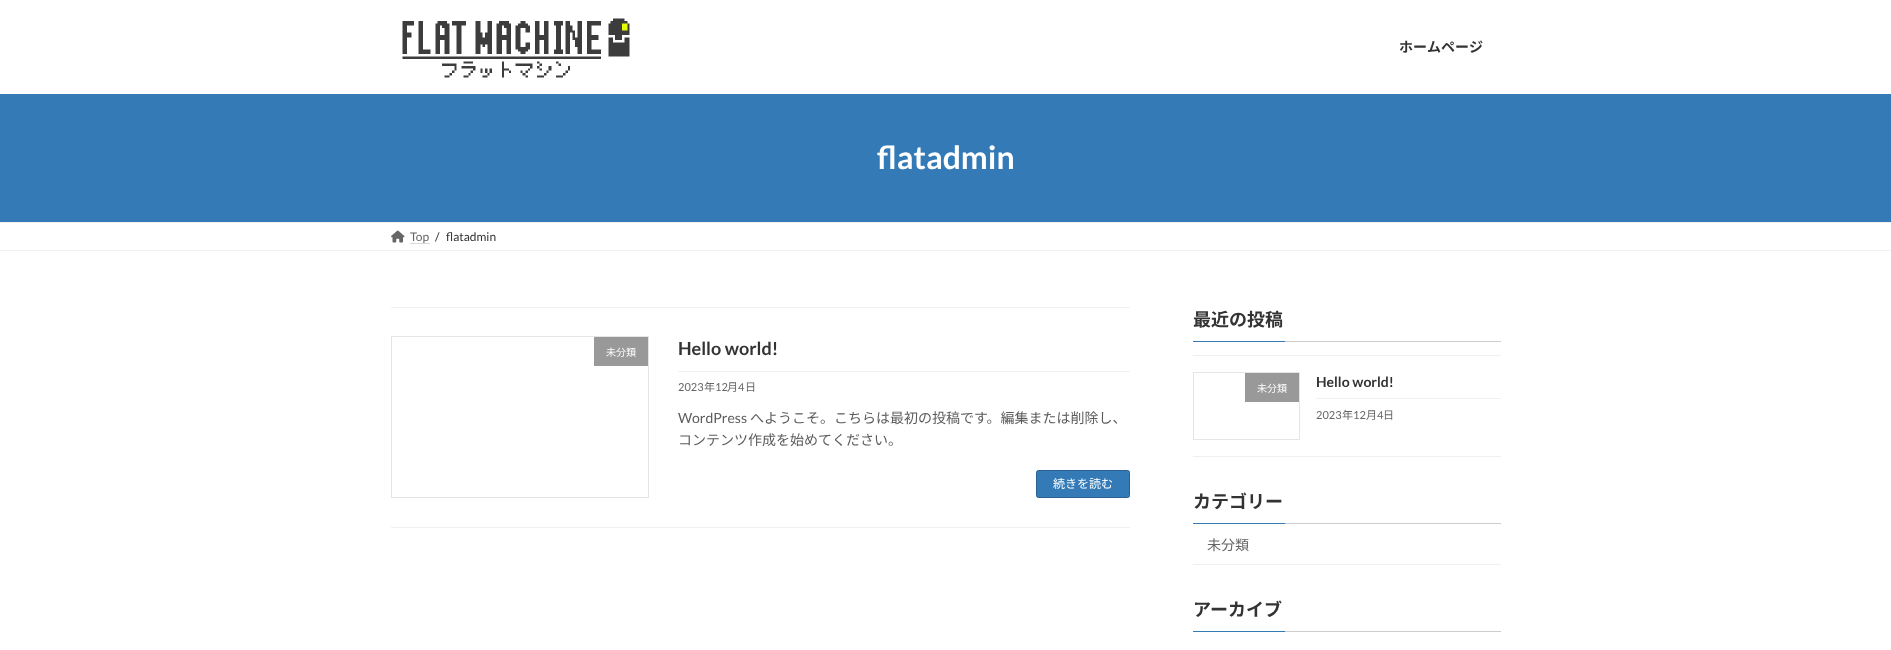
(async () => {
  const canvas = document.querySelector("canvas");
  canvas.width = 1891;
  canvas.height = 650;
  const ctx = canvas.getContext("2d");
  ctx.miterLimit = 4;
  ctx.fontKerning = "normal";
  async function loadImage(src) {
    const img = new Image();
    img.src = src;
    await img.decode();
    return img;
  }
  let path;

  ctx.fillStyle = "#ffffff";
  ctx.fillRect(0, 0, 1891, 650);
  ctx.drawImage(await loadImage("img/1.png"), 402, 18, 228, 60);
  for (const [x, y, w, h, color] of [
    [0, 94, 1891, 128, "#337ab7"],
    [0, 222, 1891, 1, "#f0f0f0"],
    [0, 250, 1891, 1, "#f0f0f0"],
  ]) {
    ctx.fillStyle = color;
    ctx.fillRect(x, y, w, h);
  }
  ctx.drawImage(await loadImage("img/2.png"), 391, 230, 14, 13);
  path = new Path2D("M410.5 243.5H429.5");
  ctx.strokeStyle = "#b3b3b3";
  ctx.setLineDash([1, 1]);
  ctx.stroke(path);
  ctx.fillRect(391, 307, 739, 1);
  ctx.fillRect(391, 527, 739, 1);
  ctx.strokeStyle = "#e5e5e5";
  ctx.setLineDash([]);
  ctx.strokeRect(391.5, 336.5, 257, 161);
  ctx.fillStyle = "#999999";
  ctx.fillRect(594, 337, 54, 29);
  ctx.fillStyle = "#f0f0f0";
  ctx.fillRect(678, 371, 452, 1);
  ctx.fillStyle = "#337ab7";
  ctx.beginPath();
  ctx.roundRect(1036.5, 470.5, 93, 27, 2);
  ctx.fill();
  ctx.strokeStyle = "#296292";
  ctx.stroke();
  for (const [x, y, w, h, color] of [
    [1285, 341, 216, 1, "#cccccc"],
    [1193, 341, 92, 1, "#337ab7"],
    [1193, 355, 308, 1, "#f0f0f0"],
    [1193, 456, 308, 1, "#f0f0f0"],
  ]) {
    ctx.fillStyle = color;
    ctx.fillRect(x, y, w, h);
  }
  ctx.strokeStyle = "#e5e5e5";
  ctx.strokeRect(1193.5, 372.5, 106, 67);
  for (const [x, y, w, h, color] of [
    [1245, 373, 54, 29, "#999999"],
    [1316, 398, 185, 1, "#f0f0f0"],
    [1285, 523, 216, 1, "#cccccc"],
    [1193, 523, 92, 1, "#337ab7"],
    [1193, 564, 308, 1, "#f0f0f0"],
    [1285, 631, 216, 1, "#cccccc"],
    [1193, 631, 92, 1, "#337ab7"],
  ]) {
    ctx.fillStyle = color;
    ctx.fillRect(x, y, w, h);
  }
  ctx.font = "bold 14px Noto Sans JP";
  ctx.fillStyle = "#333333";
  ctx.fillText("ホームページ", 1399, 52);
  ctx.font = "bold 32px Lato";
  ctx.fillStyle = "#ffffff";
  ctx.fillText("flatadmin", 877, 169);
  ctx.font = "12px Lato";
  ctx.fillStyle = "#666666";
  ctx.fillText("Top", 410, 241);
  ctx.fillStyle = "#333333";
  ctx.fillText("/", 435, 241);
  ctx.fillText("flatadmin", 446, 241);
  ctx.font = "10px Noto Sans JP";
  ctx.fillStyle = "#ffffff";
  ctx.fillText("未分類", 606, 356);
  ctx.font = "bold 18px Lato";
  ctx.fillStyle = "#333333";
  ctx.fillText("Hello world!", 678, 355);
  ctx.font = "11px Lato";
  ctx.fillStyle = "#666666";
  ctx.fillText("2023", 678, 391);
  ctx.font = "11px Noto Sans JP";
  ctx.fillText("年", 704, 391);
  ctx.font = "11px Lato";
  ctx.fillText("12", 715, 391);
  ctx.font = "11px Noto Sans JP";
  ctx.fillText("月", 727, 391);
  ctx.font = "11px Lato";
  ctx.fillText("4", 738, 391);
  ctx.font = "11px Noto Sans JP";
  ctx.fillText("日", 745, 391);
  ctx.font = "14px Lato";
  ctx.fillStyle = "#5c5c5c";
  ctx.fillText("WordPress", 678, 423);
  ctx.font = "14px Noto Sans JP";
  ctx.fillText("へようこそ。こちらは最初の投稿です。編集または削除し、", 750, 423);
  ctx.fillText("コンテンツ作成を始めてください。", 678, 445);
  ctx.font = "12px Noto Sans JP";
  ctx.fillStyle = "#ffffff";
  ctx.fillText("続きを読む", 1053, 488);
  ctx.font = "bold 18px Noto Sans JP";
  ctx.fillStyle = "#333333";
  ctx.fillText("最近の投稿", 1193, 326);
  ctx.font = "10px Noto Sans JP";
  ctx.fillStyle = "#ffffff";
  ctx.fillText("未分類", 1257, 392);
  ctx.font = "bold 14px Lato";
  ctx.fillStyle = "#333333";
  ctx.fillText("Hello world!", 1316, 387);
  ctx.font = "11px Lato";
  ctx.fillStyle = "#666666";
  ctx.fillText("2023", 1316, 419);
  ctx.font = "11px Noto Sans JP";
  ctx.fillText("年", 1342, 419);
  ctx.font = "11px Lato";
  ctx.fillText("12", 1353, 419);
  ctx.font = "11px Noto Sans JP";
  ctx.fillText("月", 1366, 419);
  ctx.font = "11px Lato";
  ctx.fillText("4", 1377, 419);
  ctx.font = "11px Noto Sans JP";
  ctx.fillText("日", 1383, 419);
  ctx.font = "bold 18px Noto Sans JP";
  ctx.fillStyle = "#333333";
  ctx.fillText("カテゴリー", 1193, 508);
  ctx.font = "14px Noto Sans JP";
  ctx.fillStyle = "#666666";
  ctx.fillText("未分類", 1207, 550);
  ctx.font = "bold 18px Noto Sans JP";
  ctx.fillStyle = "#333333";
  ctx.fillText("アーカイブ", 1193, 616);
})();
